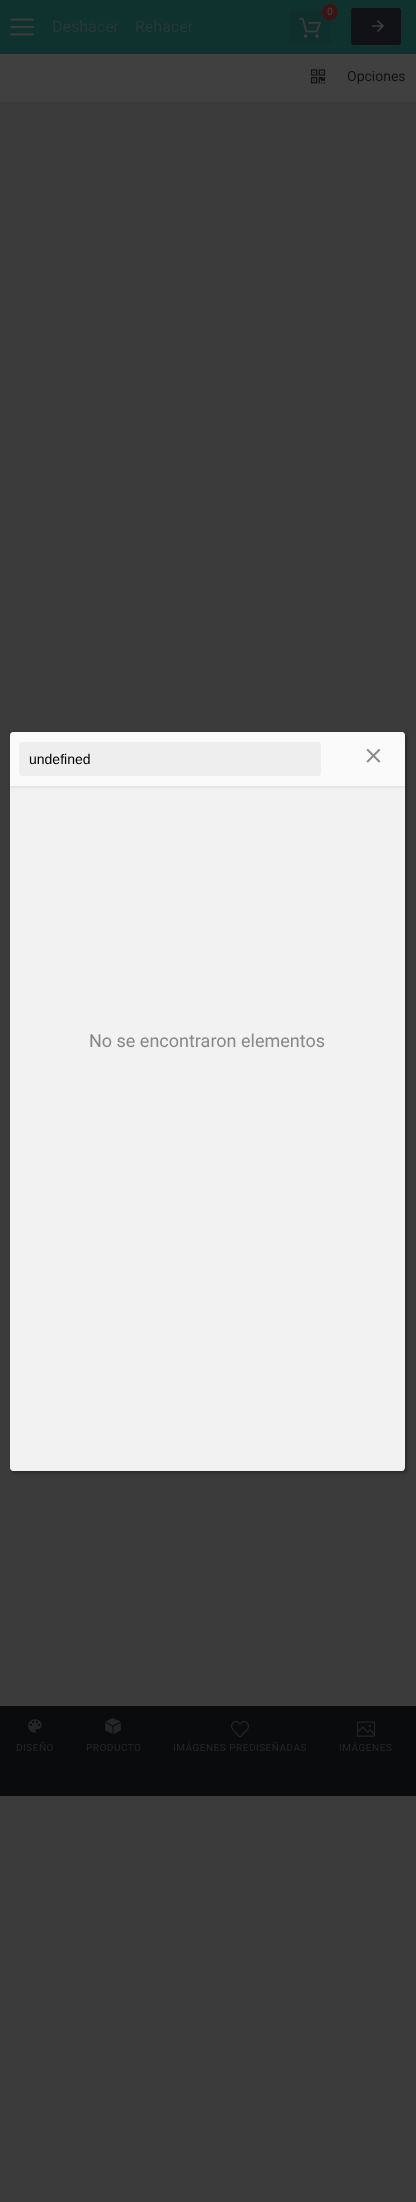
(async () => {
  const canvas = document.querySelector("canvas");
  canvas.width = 416;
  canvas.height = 2202;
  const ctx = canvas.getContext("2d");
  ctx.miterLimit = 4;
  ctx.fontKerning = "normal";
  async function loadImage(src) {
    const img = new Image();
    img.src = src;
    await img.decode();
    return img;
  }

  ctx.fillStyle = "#3b3b3b";
  ctx.fillRect(0, 0, 416, 2202);
  ctx.fillStyle = "#10322f";
  ctx.fillRect(0, 0, 416, 54);
  ctx.fillStyle = "#102f2c";
  ctx.beginPath();
  ctx.roundRect(289, 9, 42, 36, 3);
  ctx.fill();
  ctx.fillStyle = "#3c1414";
  ctx.beginPath();
  ctx.arc(330, 12, 8, 0, Math.PI * 2);
  ctx.fill();
  ctx.drawImage(await loadImage("img/1.png"), 299, 18, 22, 20);
  ctx.fillStyle = "#101215";
  ctx.beginPath();
  ctx.roundRect(351, 8, 50, 37, 3);
  ctx.fill();
  ctx.drawImage(await loadImage("img/2.png"), 372, 20, 12, 12);
  ctx.drawImage(await loadImage("img/3.png"), 10, 18, 24, 18);
  ctx.fillStyle = "#404040";
  ctx.fillRect(0, 54, 416, 48);
  ctx.drawImage(await loadImage("img/4.png"), 310, 69, 16, 15);
  ctx.fillStyle = "#0a0b0d";
  ctx.fillRect(0, 1706, 416, 90);
  ctx.drawImage(await loadImage("img/5.png"), 28, 1719, 14, 14);
  ctx.drawImage(await loadImage("img/6.png"), 105, 1718, 16, 16);
  ctx.drawImage(await loadImage("img/7.png"), 231, 1721, 18, 17);
  ctx.drawImage(await loadImage("img/8.png"), 357, 1721, 18, 16);
  ctx.fillStyle = "rgba(10, 10, 10, 0.35)";
  ctx.filter = "blur(1.5px)";
  ctx.beginPath();
  ctx.roundRect(12, 734, 395, 739, 4);
  ctx.fill();
  ctx.filter = "none";
  ctx.fillStyle = "#f2f2f2";
  ctx.beginPath();
  ctx.roundRect(10, 732, 395, 739, 4);
  ctx.fill();
  ctx.save();
  ctx.beginPath();
  ctx.roundRect(10, 732, 395, 739, 4);
  ctx.clip();
  ctx.beginPath();
  ctx.roundRect(10, 786, 394, 685, [0, 0, 0, 4]);
  ctx.fill();
  ctx.restore();
  ctx.fillStyle = "rgba(0, 0, 0, 0.1)";
  ctx.filter = "blur(1.5px)";
  ctx.beginPath();
  ctx.rect(10, 733, 395, 54);
  ctx.fill();
  ctx.filter = "none";
  ctx.fillStyle = "#fafafa";
  ctx.beginPath();
  ctx.roundRect(10, 732, 395, 54, [4, 4, 0, 0]);
  ctx.fill();
  ctx.fillStyle = "#eeeeee";
  ctx.beginPath();
  ctx.roundRect(19, 742, 302, 34, 3);
  ctx.fill();
  ctx.drawImage(await loadImage("img/9.png"), 366, 748, 15, 15);
  ctx.letterSpacing = "0.5px";
  ctx.font = "bold 10px Roboto";
  ctx.fillStyle = "#3c3c3c";
  ctx.fillText("0", 327, 15);
  ctx.letterSpacing = "0px";
  ctx.font = "16px Roboto";
  ctx.fillStyle = "#273836";
  ctx.fillText("Deshacer", 52, 32);
  ctx.fillText("Rehacer", 135, 32);
  ctx.font = "14px Roboto";
  ctx.fillStyle = "#101215";
  ctx.fillText("Opciones", 347, 81);
  ctx.letterSpacing = "0.5px";
  ctx.font = "10px Roboto";
  ctx.fillStyle = "#252626";
  for (const [text, x, y] of [
    ["DISEÑO", 16, 1751],
    ["PRODUCTO", 86, 1751],
    ["IMÁGENES PREDISEÑADAS", 173, 1751],
    ["IMÁGENES", 339, 1751],
  ]) {
    ctx.fillText(text, x, y);
  }
  ctx.letterSpacing = "0px";
  ctx.font = "14px Liberation Sans";
  ctx.fillStyle = "#000000";
  ctx.fillText("undefined", 29, 764);
  ctx.font = "18px Roboto";
  ctx.fillStyle = "#888888";
  ctx.fillText("No se encontraron elementos", 89, 1047);
})();
